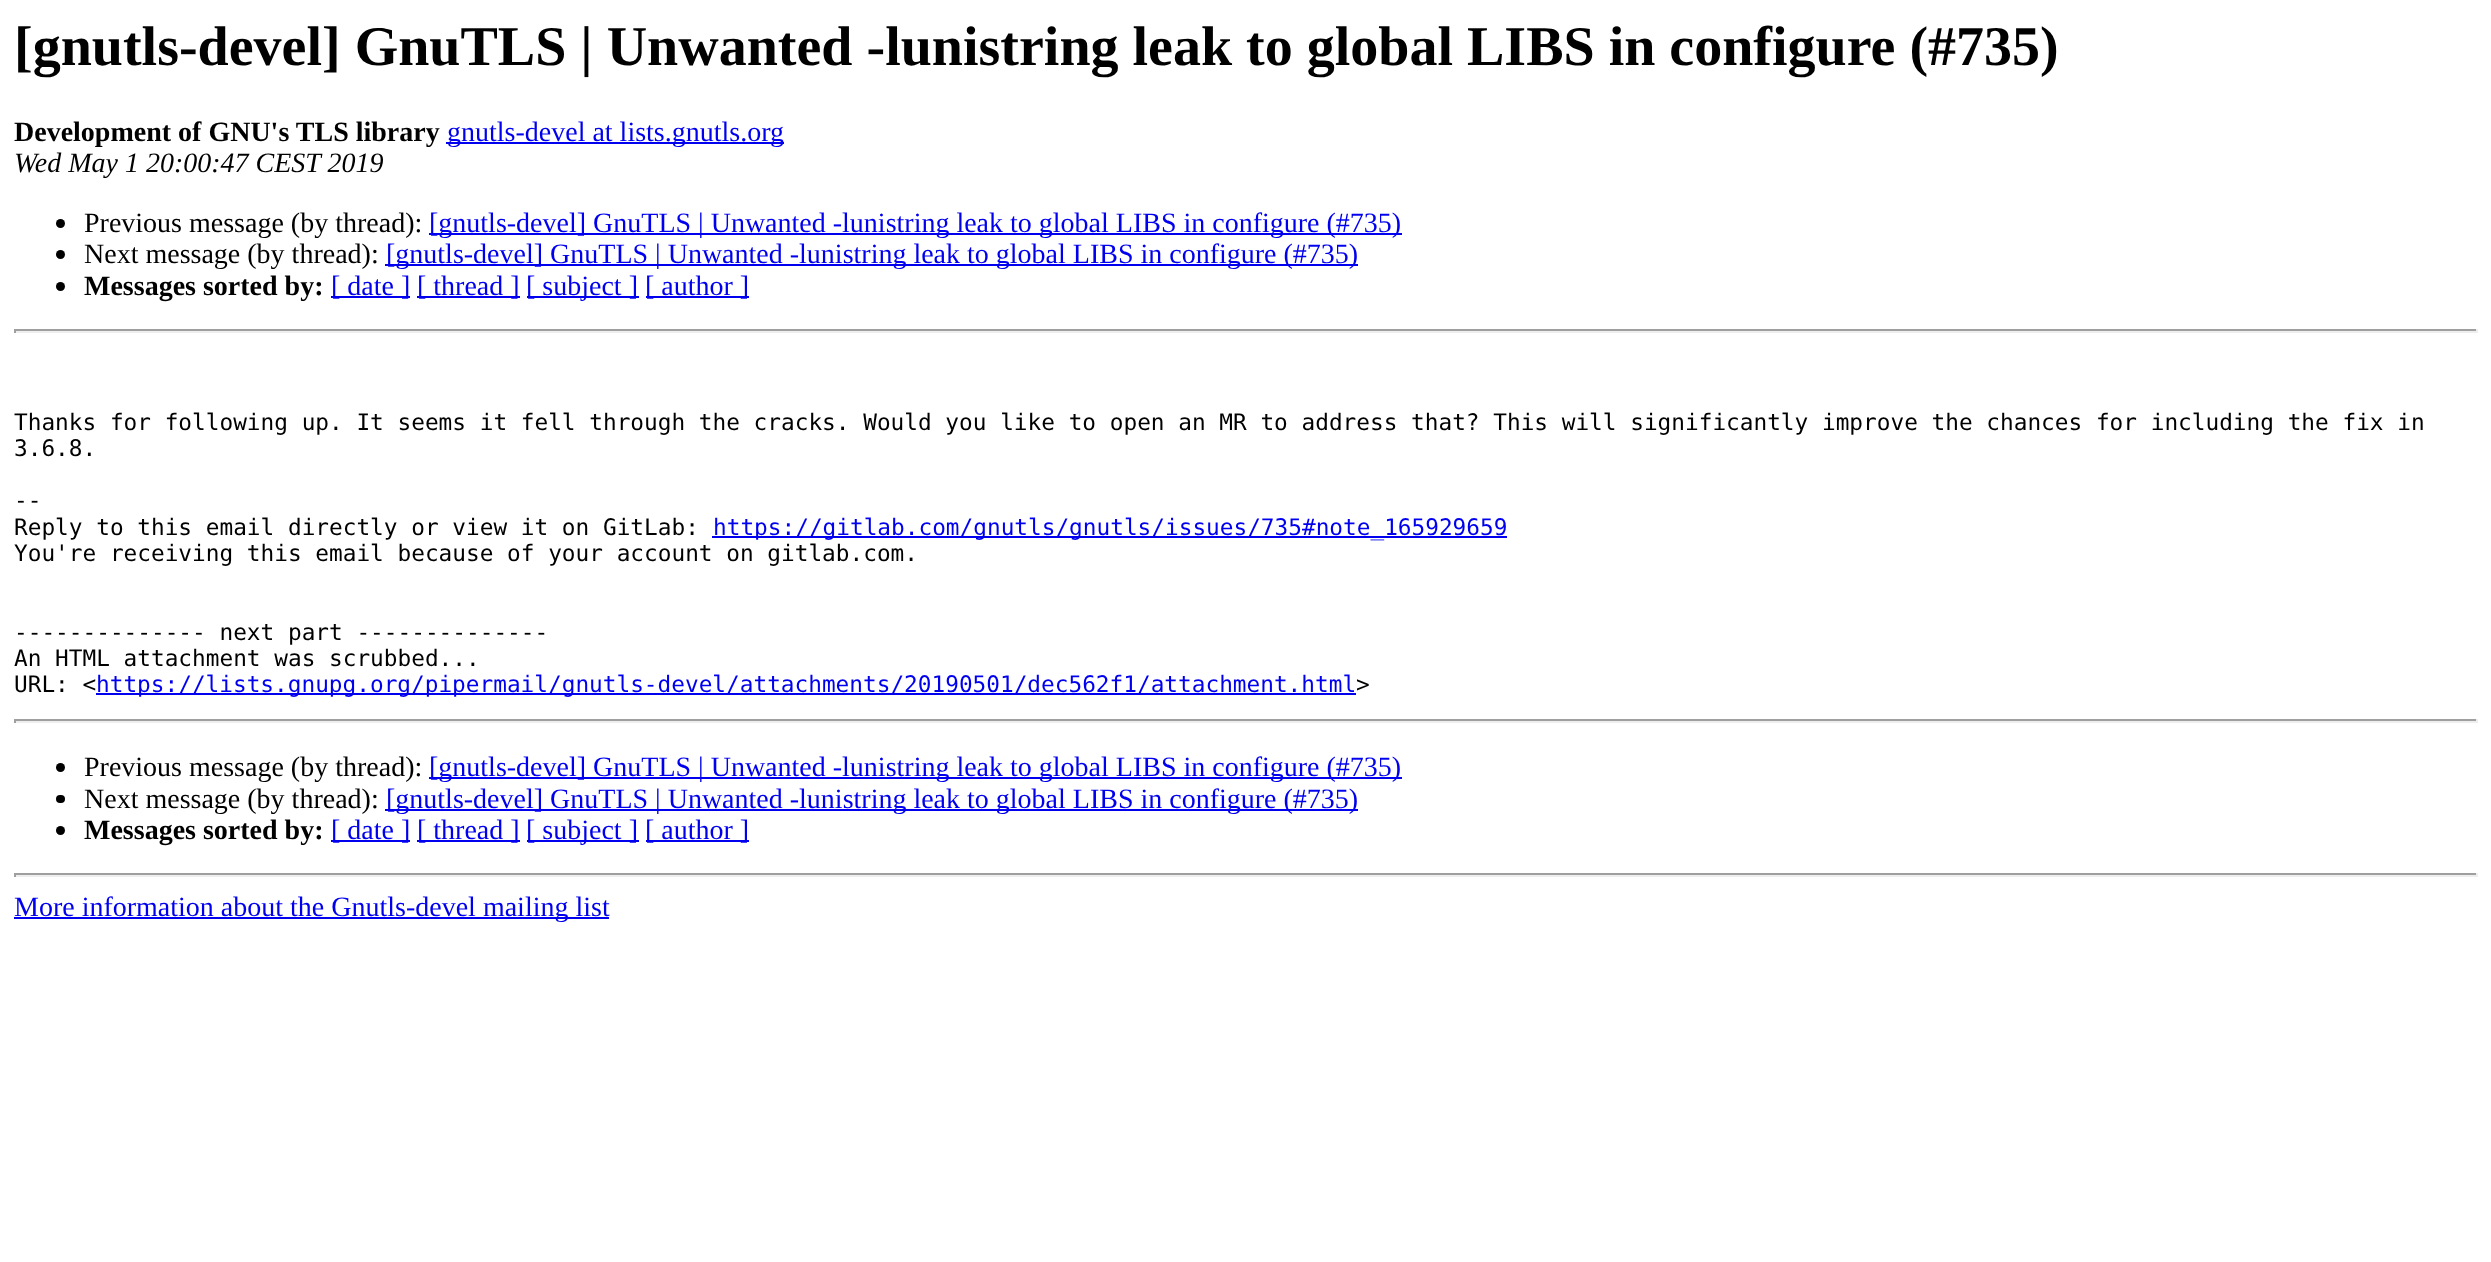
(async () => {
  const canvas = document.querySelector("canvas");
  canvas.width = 2491;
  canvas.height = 1262;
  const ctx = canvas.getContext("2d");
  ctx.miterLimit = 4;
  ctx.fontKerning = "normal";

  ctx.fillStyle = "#ffffff";
  ctx.fillRect(0, 0, 2491, 1262);
  ctx.fillStyle = "#0000ee";
  ctx.fillRect(446, 142, 338, 2);
  ctx.fillStyle = "#000000";
  ctx.beginPath();
  ctx.arc(60.5, 223.5, 4.5, 0, Math.PI * 2);
  ctx.fill();
  ctx.fillStyle = "#0000ee";
  ctx.fillRect(429, 233, 973, 2);
  ctx.fillStyle = "#000000";
  ctx.beginPath();
  ctx.arc(60.5, 254.5, 4.5, 0, Math.PI * 2);
  ctx.fill();
  ctx.fillStyle = "#0000ee";
  ctx.fillRect(385, 264, 973, 2);
  ctx.fillStyle = "#000000";
  ctx.beginPath();
  ctx.arc(60.5, 286.5, 4.5, 0, Math.PI * 2);
  ctx.fill();
  for (const [x, y, w, h, color] of [
    [331, 296, 79, 2, "#0000ee"],
    [417, 296, 103, 2, "#0000ee"],
    [527, 296, 112, 2, "#0000ee"],
    [646, 296, 103, 2, "#0000ee"],
    [14, 329, 2464, 2, "#9f9f9f"],
    [2476, 329, 2, 4, "#eeeeee"],
    [14, 331, 2464, 2, "#eeeeee"],
    [14, 329, 2, 4, "#9f9f9f"],
    [712, 536, 795, 2, "#0000ee"],
    [96, 693, 1260, 2, "#0000ee"],
    [14, 719, 2464, 2, "#9f9f9f"],
    [2476, 719, 2, 4, "#eeeeee"],
    [14, 721, 2464, 2, "#eeeeee"],
    [14, 719, 2, 4, "#9f9f9f"],
  ]) {
    ctx.fillStyle = color;
    ctx.fillRect(x, y, w, h);
  }
  ctx.fillStyle = "#000000";
  ctx.beginPath();
  ctx.arc(60.5, 767.5, 4.5, 0, Math.PI * 2);
  ctx.fill();
  ctx.fillStyle = "#0000ee";
  ctx.fillRect(429, 777, 973, 2);
  ctx.fillStyle = "#000000";
  ctx.beginPath();
  ctx.roundRect(56, 795, 9, 8, 4);
  ctx.fill();
  ctx.fillStyle = "#0000ee";
  ctx.fillRect(385, 809, 973, 2);
  ctx.fillStyle = "#000000";
  ctx.beginPath();
  ctx.arc(60.5, 830.5, 4.5, 0, Math.PI * 2);
  ctx.fill();
  for (const [x, y, w, h, color] of [
    [331, 840, 79, 2, "#0000ee"],
    [417, 840, 103, 2, "#0000ee"],
    [527, 840, 112, 2, "#0000ee"],
    [646, 840, 103, 2, "#0000ee"],
    [14, 873, 2464, 2, "#9f9f9f"],
    [2476, 873, 2, 4, "#eeeeee"],
    [14, 875, 2464, 2, "#eeeeee"],
    [14, 873, 2, 4, "#9f9f9f"],
    [14, 917, 595, 2, "#0000ee"],
  ]) {
    ctx.fillStyle = color;
    ctx.fillRect(x, y, w, h);
  }
  ctx.font = "bold 56px Liberation Serif";
  ctx.fillStyle = "#000000";
  ctx.fillText("[gnutls-devel] GnuTLS | Unwanted -lunistring leak to global LIBS in configure (#735)", 14, 65);
  ctx.font = "bold 28px Liberation Serif";
  ctx.fillText("Development of GNU's TLS library", 14, 141);
  ctx.font = "28px Liberation Serif";
  ctx.fillStyle = "#0000ee";
  ctx.fillText("gnutls-devel at lists.gnutls.org", 447, 141);
  ctx.font = "italic 28px Liberation Serif";
  ctx.fillStyle = "#000000";
  ctx.fillText("Wed May 1 20:00:47 CEST 2019", 14, 172);
  ctx.font = "28px Liberation Serif";
  ctx.fillText("Previous message (by thread):", 84, 232);
  ctx.fillStyle = "#0000ee";
  ctx.fillText("[gnutls-devel] GnuTLS | Unwanted -lunistring leak to global LIBS in configure (#735)", 429, 232);
  ctx.fillStyle = "#000000";
  ctx.fillText("Next message (by thread):", 84, 263);
  ctx.fillStyle = "#0000ee";
  ctx.fillText("[gnutls-devel] GnuTLS | Unwanted -lunistring leak to global LIBS in configure (#735)", 386, 263);
  ctx.font = "bold 28px Liberation Serif";
  ctx.fillStyle = "#000000";
  ctx.fillText("Messages sorted by:", 84, 295);
  ctx.font = "28px Liberation Serif";
  ctx.fillStyle = "#0000ee";
  for (const [text, x, y] of [
    ["[ date ]", 331, 295],
    ["[ thread ]", 417, 295],
    ["[ subject ]", 526, 295],
    ["[ author ]", 645, 295],
  ]) {
    ctx.fillText(text, x, y);
  }
  ctx.font = "22.75px DejaVu Sans Mono";
  ctx.fillStyle = "#000000";
  for (const [text, x, y] of [
    ["Thanks for following up. It seems it fell through the cracks. Would you like to open an MR to address that? This will significantly improve the chances for including the fix in", 14, 430],
    ["3.6.8.", 14, 456],
    ["--", 14, 508],
    ["Reply to this email directly or view it on GitLab:", 14, 535],
  ]) {
    ctx.fillText(text, x, y);
  }
  ctx.fillStyle = "#0000ee";
  ctx.fillText("https://gitlab.com/gnutls/gnutls/issues/735#note_165929659", 713, 535);
  ctx.fillStyle = "#000000";
  for (const [text, x, y] of [
    ["You're receiving this email because of your account on gitlab.com.", 14, 561],
    ["-------------- next part --------------", 14, 640],
    ["An HTML attachment was scrubbed...", 14, 666],
    ["URL: <", 14, 692],
  ]) {
    ctx.fillText(text, x, y);
  }
  ctx.fillStyle = "#0000ee";
  ctx.fillText("https://lists.gnupg.org/pipermail/gnutls-devel/attachments/20190501/dec562f1/attachment.html", 96, 692);
  ctx.fillStyle = "#000000";
  ctx.fillText(">", 1356, 692);
  ctx.font = "28px Liberation Serif";
  ctx.fillText("Previous message (by thread):", 84, 776);
  ctx.fillStyle = "#0000ee";
  ctx.fillText("[gnutls-devel] GnuTLS | Unwanted -lunistring leak to global LIBS in configure (#735)", 429, 776);
  ctx.fillStyle = "#000000";
  ctx.fillText("Next message (by thread):", 84, 808);
  ctx.fillStyle = "#0000ee";
  ctx.fillText("[gnutls-devel] GnuTLS | Unwanted -lunistring leak to global LIBS in configure (#735)", 386, 808);
  ctx.font = "bold 28px Liberation Serif";
  ctx.fillStyle = "#000000";
  ctx.fillText("Messages sorted by:", 84, 839);
  ctx.font = "28px Liberation Serif";
  ctx.fillStyle = "#0000ee";
  for (const [text, x, y] of [
    ["[ date ]", 331, 839],
    ["[ thread ]", 417, 839],
    ["[ subject ]", 526, 839],
    ["[ author ]", 645, 839],
    ["More information about the Gnutls-devel mailing list", 14, 916],
  ]) {
    ctx.fillText(text, x, y);
  }
})();
